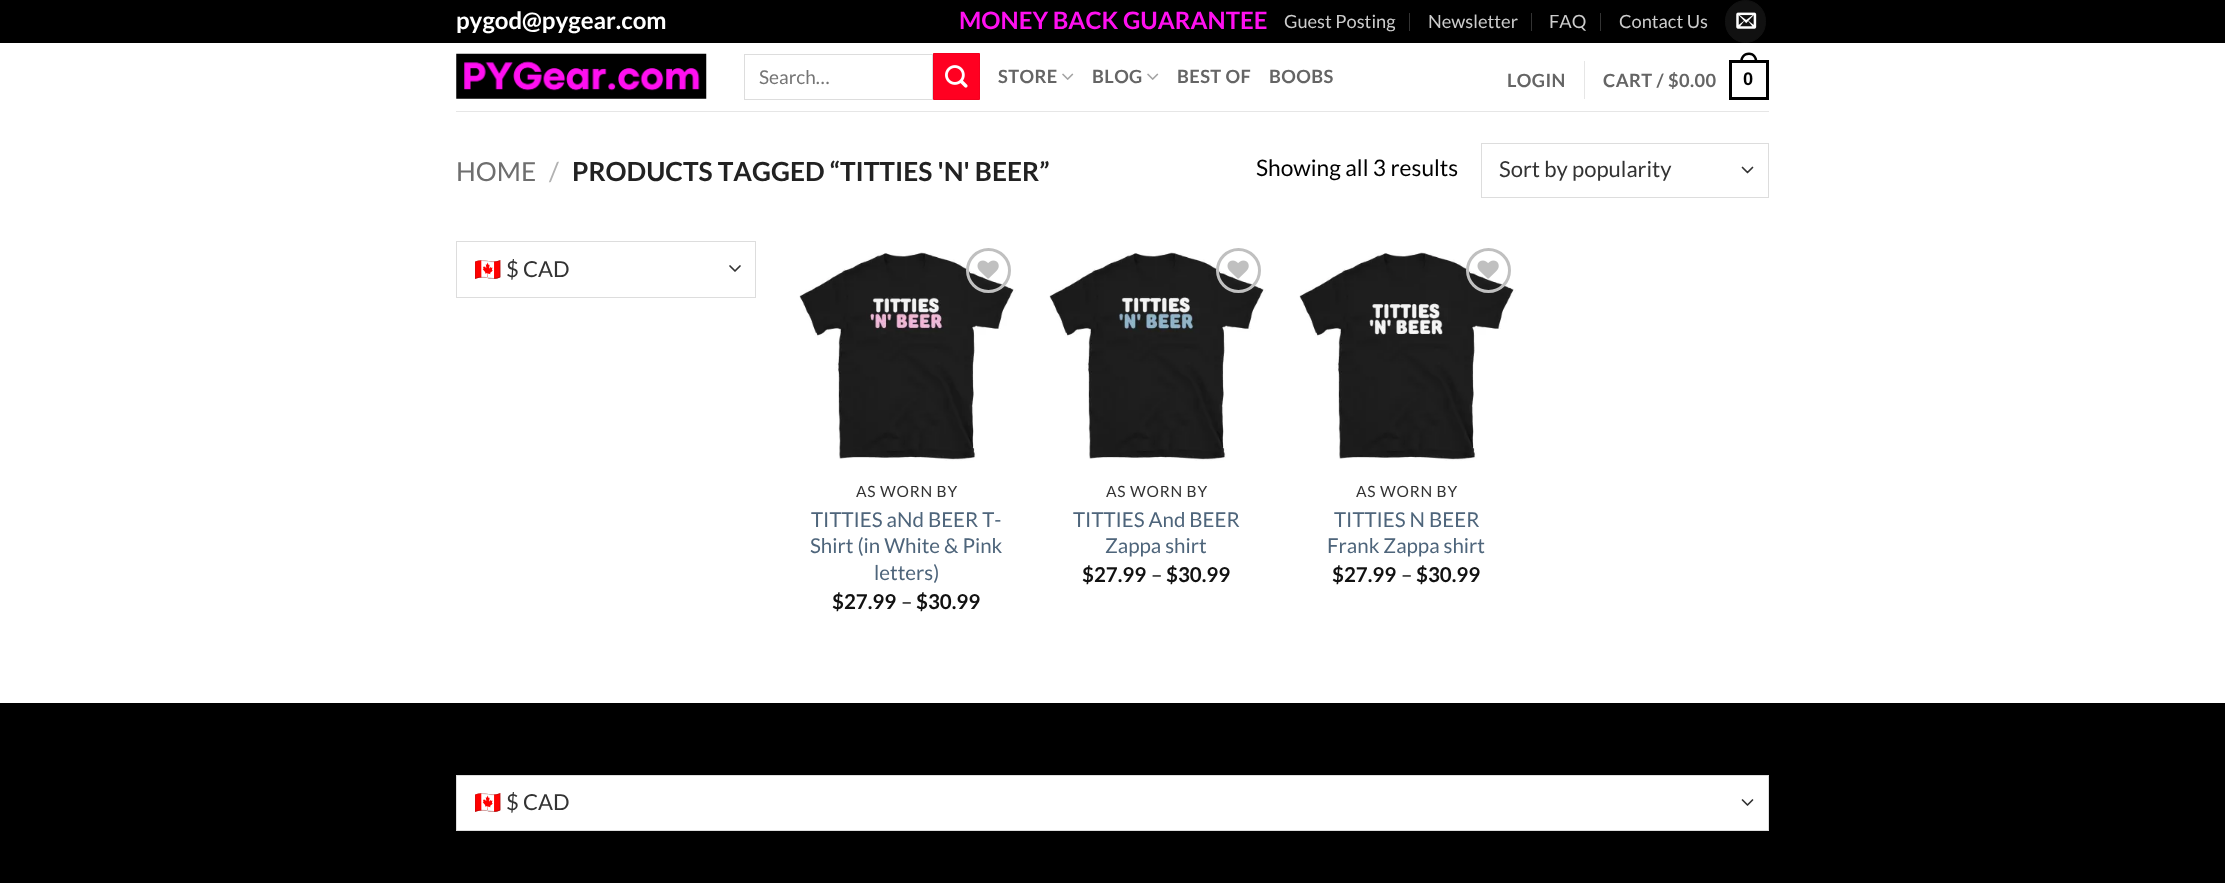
(async () => {
  const canvas = document.querySelector("canvas");
  canvas.width = 2225;
  canvas.height = 883;
  const ctx = canvas.getContext("2d");
  ctx.miterLimit = 4;
  ctx.fontKerning = "none";
  async function loadImage(src) {
    const img = new Image();
    img.src = src;
    await img.decode();
    return img;
  }
  let path;

  ctx.fillStyle = "#ffffff";
  ctx.fillRect(0, 0, 2225, 883);
  for (const [x, y, w, h, color] of [
    [0, 0, 2225, 43, "#000000"],
    [1409, 13, 1, 18, "#333333"],
    [1531, 13, 1, 18, "#333333"],
    [1600, 13, 1, 18, "#333333"],
  ]) {
    ctx.fillStyle = color;
    ctx.fillRect(x, y, w, h);
  }
  ctx.fillStyle = "#111111";
  ctx.beginPath();
  ctx.roundRect(1725.5, 0.5, 40, 42, 20);
  ctx.fill();
  ctx.strokeStyle = "#111111";
  ctx.stroke();
  ctx.drawImage(await loadImage("img/1.png"), 1736, 12, 21, 17);
  ctx.drawImage(await loadImage("img/2.png"), 456, 53, 251, 46);
  ctx.strokeStyle = "#dddddd";
  ctx.strokeRect(744.5, 54.5, 188, 45);
  ctx.fillStyle = "#ff0021";
  ctx.beginPath();
  ctx.rect(933.5, 53.5, 46, 46);
  ctx.fill();
  ctx.strokeStyle = "#f2001f";
  ctx.stroke();
  ctx.drawImage(await loadImage("img/3.png"), 945, 65, 23, 23);
  ctx.drawImage(await loadImage("img/4.png"), 1062, 73, 12, 7);
  ctx.drawImage(await loadImage("img/4.png"), 1147, 73, 12, 7);
  ctx.fillStyle = "#e6e6e6";
  ctx.fillRect(1584, 61, 1, 38);
  ctx.strokeStyle = "#000000";
  ctx.lineWidth = 3;
  ctx.strokeRect(1730.5, 61.5, 37, 37);
  ctx.fillStyle = "#000000";
  path = new Path2D("M1749 52.5C1754.5 52.5 1757.5 57 1757.5 62.5H1740C1740 57 1743 52.5 1749 52.5ZM1749 55C1753 55 1755 58.5 1755 62.5H1742.5C1742.5 58.5 1744.5 55 1749 55Z");
  ctx.fill(path, "evenodd");
  ctx.fillStyle = "#e6e6e6";
  ctx.fillRect(456, 111, 1313, 1);
  path = new Path2D("M1742.5 167.5L1747.5 172.5L1752.5 167.5");
  ctx.strokeStyle = "#333333";
  ctx.lineWidth = 1.7;
  ctx.lineCap = "round";
  ctx.lineJoin = "round";
  ctx.stroke(path);
  ctx.strokeStyle = "#dddddd";
  ctx.lineWidth = 1;
  ctx.lineJoin = "miter";
  ctx.strokeRect(1481.5, 143.5, 287, 54);
  path = new Path2D("M730 266L735 271L740 266");
  ctx.strokeStyle = "#333333";
  ctx.lineWidth = 1.7;
  ctx.lineJoin = "round";
  ctx.stroke(path);
  ctx.strokeStyle = "#dddddd";
  ctx.lineWidth = 1;
  ctx.lineJoin = "miter";
  ctx.strokeRect(456.5, 241.5, 299, 56);
  ctx.drawImage(await loadImage("img/6.png"), 799, 252, 217, 209);
  ctx.beginPath();
  ctx.arc(988.5, 270.5, 21, 0, Math.PI * 2);
  ctx.strokeStyle = "#c0c0c0";
  ctx.lineWidth = 3;
  ctx.stroke();
  ctx.drawImage(await loadImage("img/5.png"), 977, 260, 22, 19);
  ctx.drawImage(await loadImage("img/8.png"), 1049, 252, 217, 209);
  ctx.beginPath();
  ctx.arc(1238.5, 270.5, 21, 0, Math.PI * 2);
  ctx.stroke();
  ctx.drawImage(await loadImage("img/7.png"), 1227, 260, 22, 19);
  ctx.drawImage(await loadImage("img/10.png"), 1299, 252, 217, 209);
  ctx.beginPath();
  ctx.arc(1488.5, 270.5, 21, 0, Math.PI * 2);
  ctx.stroke();
  ctx.drawImage(await loadImage("img/9.png"), 1477, 260, 22, 19);
  ctx.fillStyle = "#000000";
  ctx.fillRect(0, 703, 2225, 180);
  ctx.fillStyle = "#ffffff";
  ctx.fillRect(457, 776, 1311, 54);
  path = new Path2D("M1742.5 800L1747.5 805L1752.5 800");
  ctx.strokeStyle = "#333333";
  ctx.lineWidth = 1.7;
  ctx.lineJoin = "round";
  ctx.stroke(path);
  ctx.strokeStyle = "#dddddd";
  ctx.lineWidth = 1;
  ctx.lineJoin = "miter";
  ctx.strokeRect(456.5, 775.5, 1312, 55);
  ctx.font = "bold 24px Lato";
  ctx.fillText("pygod@pygear.com", 456, 29);
  ctx.fillStyle = "#ff10f0";
  ctx.fillText("MONEY BACK GUARANTEE", 959, 29);
  ctx.font = "18.25px Lato";
  ctx.fillStyle = "#cccccc";
  for (const [text, x, y] of [
    ["Guest Posting", 1284, 28],
    ["Newsletter", 1428, 28],
    ["FAQ", 1549, 28],
    ["Contact Us", 1619, 28],
  ]) {
    ctx.fillText(text, x, y);
  }
  ctx.font = "19px Lato";
  ctx.fillStyle = "#757575";
  ctx.fillText("Search…", 759, 84);
  ctx.letterSpacing = "0.4px";
  ctx.font = "bold 18.25px Lato";
  ctx.fillStyle = "#656565";
  for (const [text, x, y] of [
    ["STORE", 998, 83],
    ["BLOG", 1092, 83],
    ["BEST OF", 1177, 83],
    ["BOOBS", 1269, 83],
    ["LOGIN", 1507, 87],
    ["CART / $0.00", 1603, 87],
  ]) {
    ctx.fillText(text, x, y);
  }
  ctx.font = "bold 18.25px Liberation Sans";
  ctx.fillStyle = "#000000";
  ctx.fillText("0", 1743, 85);
  ctx.letterSpacing = "0px";
  ctx.font = "26.25px Lato";
  ctx.fillStyle = "#6e6e6e";
  ctx.fillText("HOME", 456, 181);
  ctx.fillStyle = "#b2b2b2";
  ctx.fillText("/", 549, 181);
  ctx.font = "bold 26.25px Lato";
  ctx.fillStyle = "#222222";
  ctx.fillText("PRODUCTS TAGGED “TITTIES 'N' BEER”", 572, 181);
  ctx.font = "22.75px Lato";
  ctx.fillStyle = "#000000";
  ctx.fillText("Showing all 3 results", 1256, 176);
  ctx.font = "22px Lato";
  ctx.fillStyle = "#333333";
  ctx.fillText("Sort by popularity", 1499, 177);
  ctx.font = "22px Noto Color Emoji";
  ctx.fillText("🇨🇦", 474, 277);
  ctx.font = "22px Lato";
  ctx.fillText("$ CAD", 506, 277);
  ctx.letterSpacing = "0.75px";
  ctx.font = "15.5px Lato";
  ctx.fillText("AS WORN BY", 856, 497);
  ctx.letterSpacing = "0px";
  ctx.font = "20.5px Lato";
  ctx.fillStyle = "#4e657b";
  for (const [text, x, y] of [
    ["TITTIES aNd BEER T-", 811, 527],
    ["Shirt (in White & Pink", 810, 553],
    ["letters)", 874, 580],
  ]) {
    ctx.fillText(text, x, y);
  }
  ctx.font = "bold 20.5px Lato";
  ctx.fillStyle = "#111111";
  ctx.fillText("$27.99", 832, 609);
  ctx.font = "20.5px Lato";
  ctx.fillStyle = "#000000";
  ctx.fillText("–", 901, 609);
  ctx.font = "bold 20.5px Lato";
  ctx.fillStyle = "#111111";
  ctx.fillText("$30.99", 916, 609);
  ctx.letterSpacing = "0.75px";
  ctx.font = "15.5px Lato";
  ctx.fillStyle = "#333333";
  ctx.fillText("AS WORN BY", 1106, 497);
  ctx.letterSpacing = "0px";
  ctx.font = "20.5px Lato";
  ctx.fillStyle = "#4e657b";
  ctx.fillText("TITTIES And BEER", 1073, 527);
  ctx.fillText("Zappa shirt", 1105, 553);
  ctx.font = "bold 20.5px Lato";
  ctx.fillStyle = "#111111";
  ctx.fillText("$27.99", 1082, 582);
  ctx.font = "20.5px Lato";
  ctx.fillStyle = "#000000";
  ctx.fillText("–", 1151, 582);
  ctx.font = "bold 20.5px Lato";
  ctx.fillStyle = "#111111";
  ctx.fillText("$30.99", 1166, 582);
  ctx.letterSpacing = "0.75px";
  ctx.font = "15.5px Lato";
  ctx.fillStyle = "#333333";
  ctx.fillText("AS WORN BY", 1356, 497);
  ctx.letterSpacing = "0px";
  ctx.font = "20.5px Lato";
  ctx.fillStyle = "#4e657b";
  ctx.fillText("TITTIES N BEER", 1334, 527);
  ctx.fillText("Frank Zappa shirt", 1327, 553);
  ctx.font = "bold 20.5px Lato";
  ctx.fillStyle = "#111111";
  ctx.fillText("$27.99", 1332, 582);
  ctx.font = "20.5px Lato";
  ctx.fillStyle = "#000000";
  ctx.fillText("–", 1401, 582);
  ctx.font = "bold 20.5px Lato";
  ctx.fillStyle = "#111111";
  ctx.fillText("$30.99", 1416, 582);
  ctx.font = "22px Noto Color Emoji";
  ctx.fillStyle = "#333333";
  ctx.fillText("🇨🇦", 474, 810);
  ctx.font = "22px Lato";
  ctx.fillText("$ CAD", 506, 810);
})();
